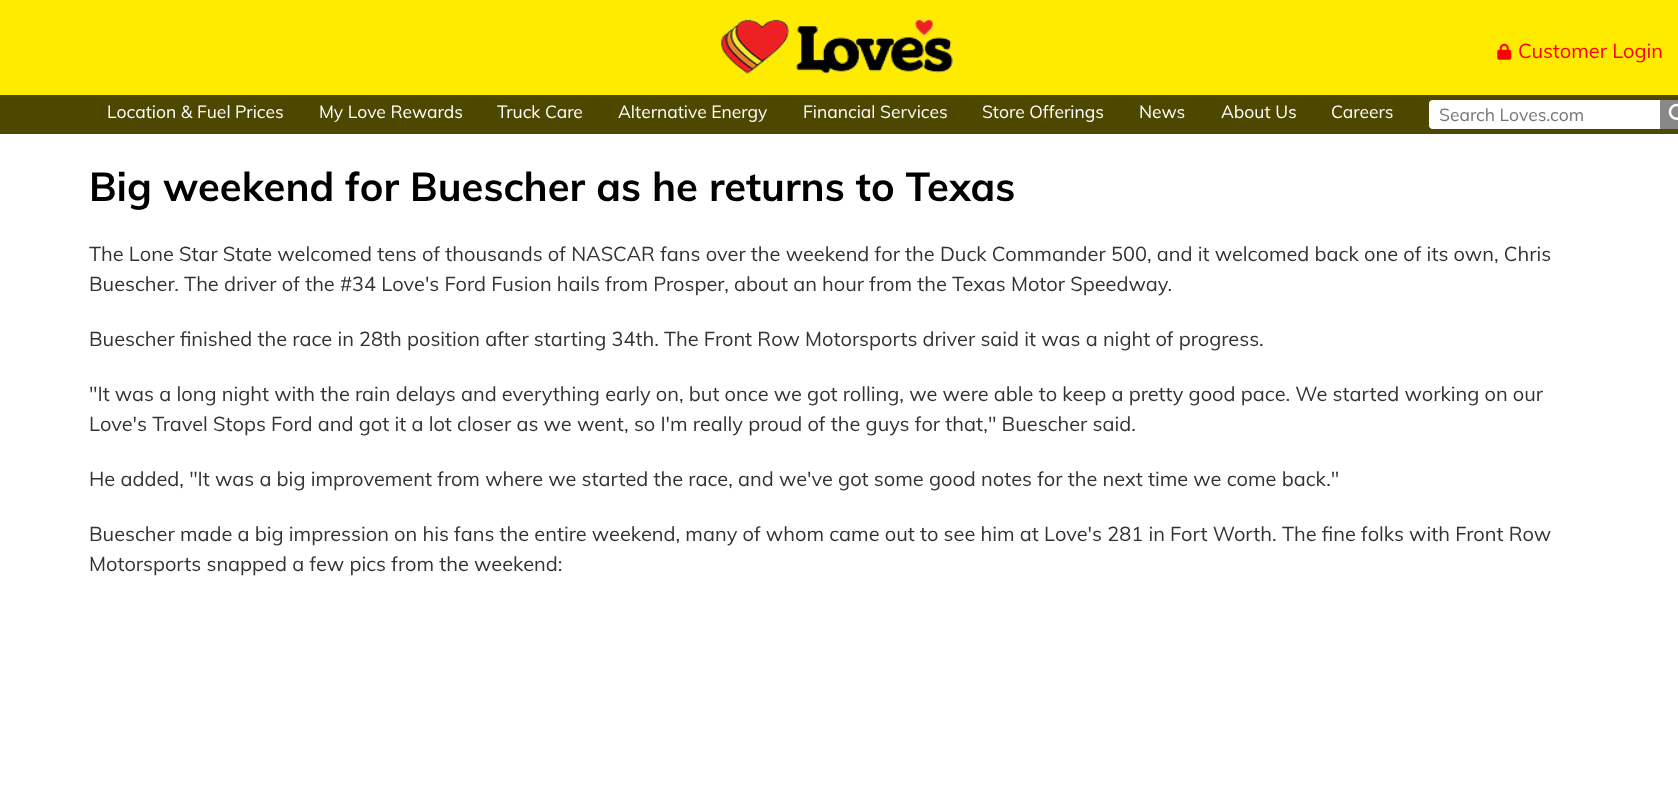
(async () => {
  const canvas = document.querySelector("canvas");
  canvas.width = 1678;
  canvas.height = 800;
  const ctx = canvas.getContext("2d");
  ctx.miterLimit = 4;
  ctx.fontKerning = "normal";
  async function loadImage(src) {
    const img = new Image();
    img.src = src;
    await img.decode();
    return img;
  }

  ctx.fillStyle = "#ffffff";
  ctx.fillRect(0, 0, 1678, 800);
  ctx.fillStyle = "#ffeb00";
  ctx.fillRect(0, 0, 1678, 95);
  ctx.drawImage(await loadImage("img/1.png"), 721, 19, 232, 55);
  ctx.drawImage(await loadImage("img/2.png"), 1497, 43, 15, 17);
  ctx.fillStyle = "#4d4700";
  ctx.fillRect(0, 95, 1678, 39);
  ctx.fillStyle = "#ffffff";
  ctx.beginPath();
  ctx.roundRect(1429, 100, 231, 29, [4, 0, 0, 4]);
  ctx.fill();
  ctx.fillStyle = "#888888";
  ctx.fillRect(1660, 100, 18, 29);
  ctx.drawImage(await loadImage("img/3.png"), 1668, 103, 10, 17);
  ctx.font = "20px Muli";
  ctx.fillStyle = "#ff0000";
  ctx.fillText("Customer Login", 1518, 58);
  ctx.font = "17.5px Muli";
  ctx.fillStyle = "#ffffff";
  for (const [text, x, y] of [
    ["Location & Fuel Prices", 107, 118],
    ["My Love Rewards", 319, 118],
    ["Truck Care", 497, 118],
    ["Alternative Energy", 618, 118],
    ["Financial Services", 803, 118],
    ["Store Offerings", 982, 118],
    ["News", 1139, 118],
    ["About Us", 1221, 118],
    ["Careers", 1331, 118],
  ]) {
    ctx.fillText(text, x, y);
  }
  ctx.fillStyle = "#757575";
  ctx.fillText("Search Loves.com", 1439, 121);
  ctx.font = "bold 40px Muli";
  ctx.fillStyle = "#000000";
  ctx.fillText("Big weekend for Buescher as he returns to Texas", 89, 201);
  ctx.font = "20px Muli";
  ctx.fillStyle = "#333333";
  for (const [text, x, y] of [
    ["The Lone Star State welcomed tens of thousands of NASCAR fans over the weekend for the Duck Commander 500, and it welcomed back one of its own, Chris", 89, 261],
    ["Buescher. The driver of the #34 Love's Ford Fusion hails from Prosper, about an hour from the Texas Motor Speedway.", 89, 291],
    ["Buescher finished the race in 28th position after starting 34th. The Front Row Motorsports driver said it was a night of progress.", 89, 346],
    ["\"It was a long night with the rain delays and everything early on, but once we got rolling, we were able to keep a pretty good pace. We started working on our", 89, 401],
    ["Love's Travel Stops Ford and got it a lot closer as we went, so I'm really proud of the guys for that,\" Buescher said.", 89, 431],
    ["He added, \"It was a big improvement from where we started the race, and we've got some good notes for the next time we come back.\"", 89, 486],
    ["Buescher made a big impression on his fans the entire weekend, many of whom came out to see him at Love's 281 in Fort Worth. The fine folks with Front Row", 89, 541],
    ["Motorsports snapped a few pics from the weekend:", 89, 571],
  ]) {
    ctx.fillText(text, x, y);
  }
})();
